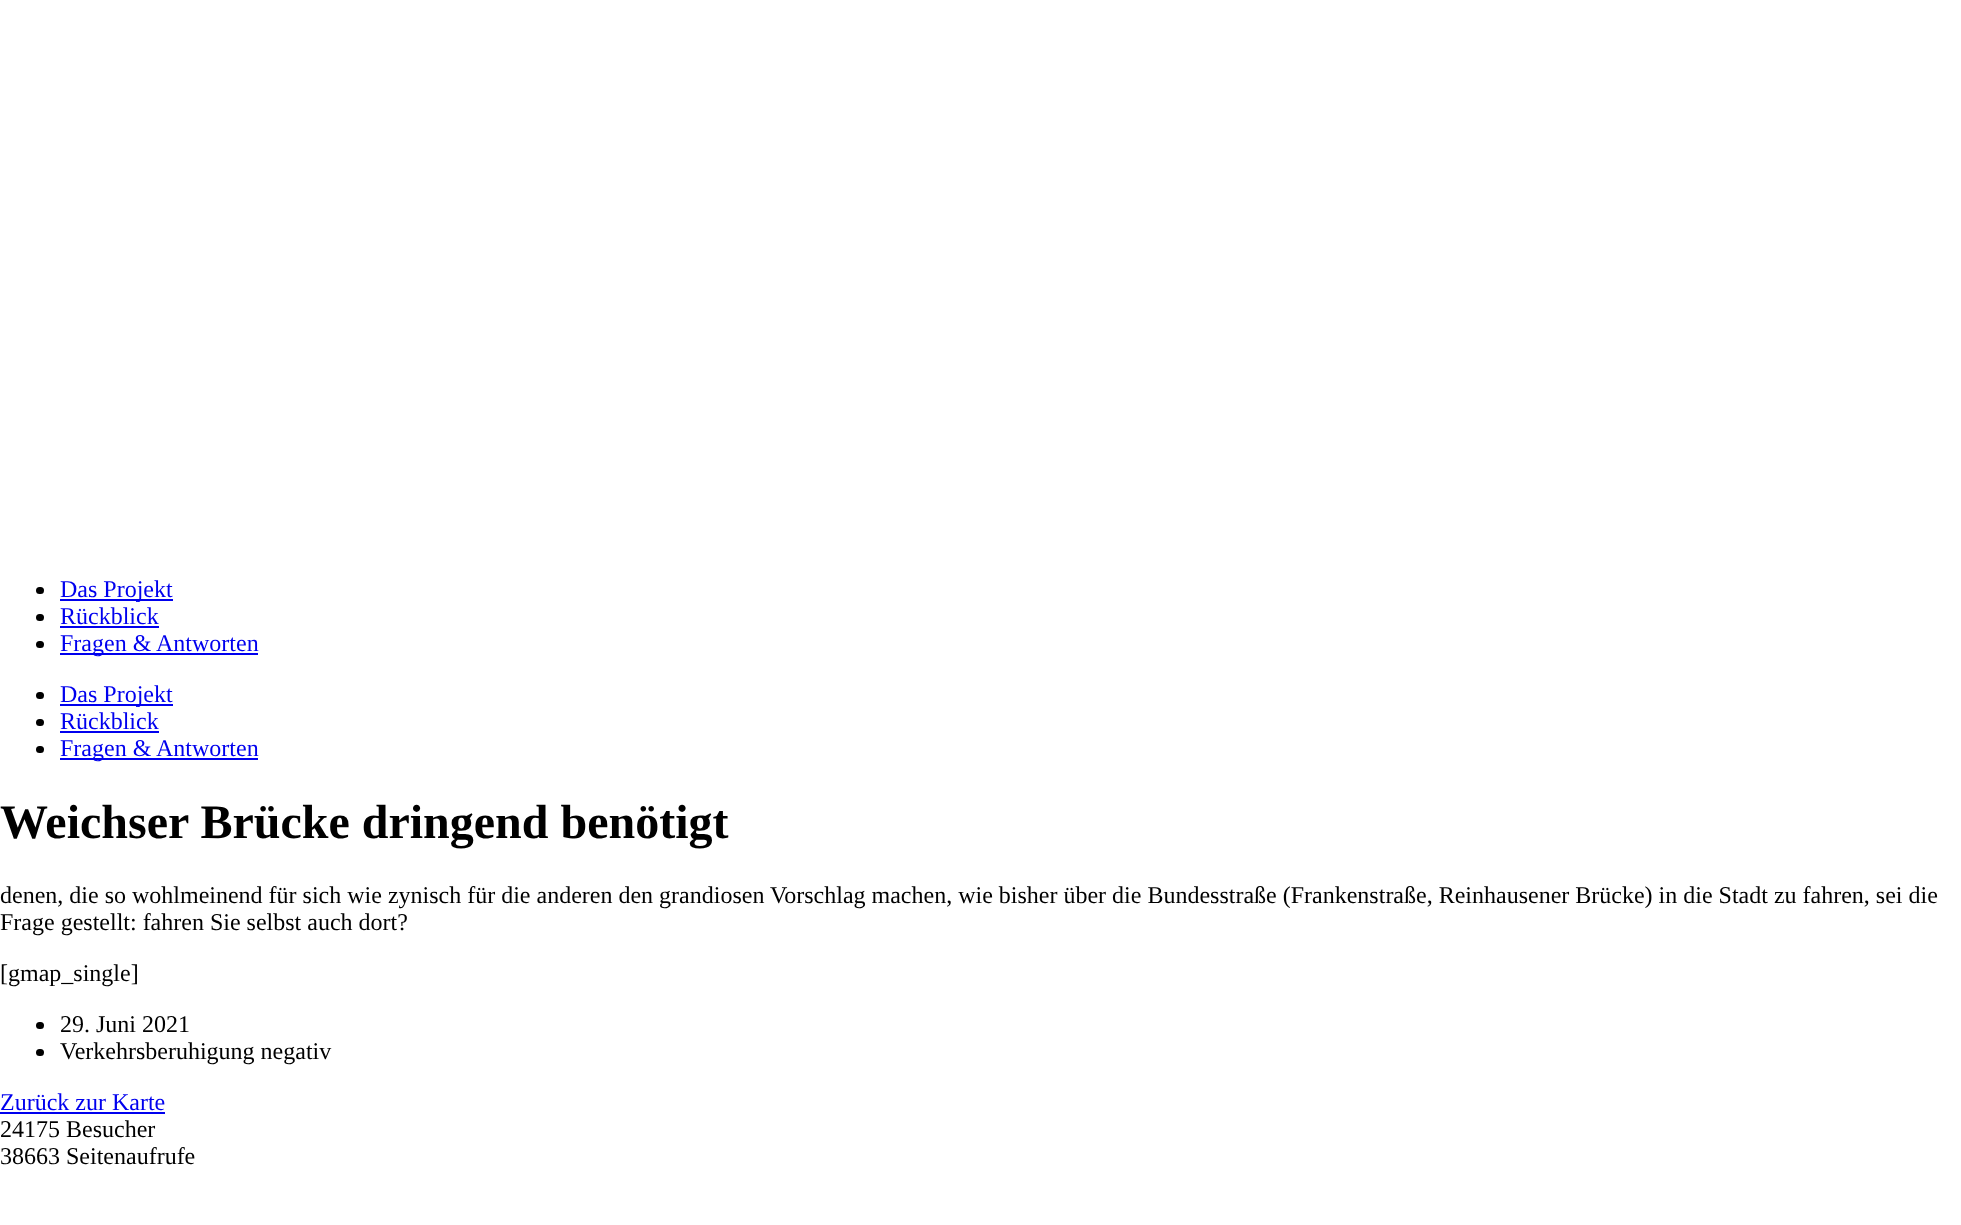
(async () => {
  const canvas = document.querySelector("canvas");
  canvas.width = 1961;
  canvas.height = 1225;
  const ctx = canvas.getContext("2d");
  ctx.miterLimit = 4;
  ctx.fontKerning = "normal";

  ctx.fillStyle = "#ffffff";
  ctx.fillRect(0, 0, 1961, 1225);
  ctx.fillStyle = "#000000";
  ctx.beginPath();
  ctx.roundRect(36, 587, 8, 7, 3.5);
  ctx.fill();
  ctx.fillStyle = "#0000ee";
  ctx.fillRect(60, 599, 113, 2);
  ctx.fillStyle = "#000000";
  ctx.beginPath();
  ctx.roundRect(36, 614, 8, 7, 3.5);
  ctx.fill();
  ctx.fillStyle = "#0000ee";
  ctx.fillRect(60, 626, 99, 2);
  ctx.fillStyle = "#000000";
  ctx.beginPath();
  ctx.roundRect(36, 641, 8, 7, 3.5);
  ctx.fill();
  ctx.fillStyle = "#0000ee";
  ctx.fillRect(60, 653, 198, 2);
  ctx.fillStyle = "#000000";
  ctx.beginPath();
  ctx.roundRect(36, 692, 8, 7, 3.5);
  ctx.fill();
  ctx.fillStyle = "#0000ee";
  ctx.fillRect(60, 704, 113, 2);
  ctx.fillStyle = "#000000";
  ctx.beginPath();
  ctx.roundRect(36, 719, 8, 7, 3.5);
  ctx.fill();
  ctx.fillStyle = "#0000ee";
  ctx.fillRect(60, 731, 99, 2);
  ctx.fillStyle = "#000000";
  ctx.beginPath();
  ctx.roundRect(36, 746, 8, 7, 3.5);
  ctx.fill();
  ctx.fillStyle = "#0000ee";
  ctx.fillRect(60, 758, 198, 2);
  ctx.fillStyle = "#000000";
  ctx.beginPath();
  ctx.roundRect(36, 1022, 8, 7, 3.5);
  ctx.fill();
  ctx.beginPath();
  ctx.roundRect(36, 1049, 8, 7, 3.5);
  ctx.fill();
  ctx.fillStyle = "#0000ee";
  ctx.fillRect(0, 1112, 165, 2);
  ctx.font = "24px Liberation Serif";
  for (const [text, x, y] of [
    ["Das Projekt", 60, 597],
    ["Rückblick", 60, 624],
    ["Fragen & Antworten", 60, 651],
    ["Das Projekt", 60, 702],
    ["Rückblick", 60, 729],
    ["Fragen & Antworten", 60, 756],
  ]) {
    ctx.fillText(text, x, y);
  }
  ctx.font = "bold 48px Liberation Serif";
  ctx.fillStyle = "#000000";
  ctx.fillText("Weichser Brücke dringend benötigt", 0, 838);
  ctx.font = "24px Liberation Serif";
  for (const [text, x, y] of [
    ["denen, die so wohlmeinend für sich wie zynisch für die anderen den grandiosen Vorschlag machen, wie bisher über die Bundesstraße (Frankenstraße, Reinhausener Brücke) in die Stadt zu fahren, sei die", 0, 903],
    ["Frage gestellt: fahren Sie selbst auch dort?", 0, 930],
    ["[gmap_single]", 0, 981],
    ["29. Juni 2021", 60, 1032],
    ["Verkehrsberuhigung negativ", 60, 1059],
  ]) {
    ctx.fillText(text, x, y);
  }
  ctx.fillStyle = "#0000ee";
  ctx.fillText("Zurück zur Karte", 0, 1110);
  ctx.fillStyle = "#000000";
  ctx.fillText("24175 Besucher", 0, 1137);
  ctx.fillText("38663 Seitenaufrufe", 0, 1164);
})();
